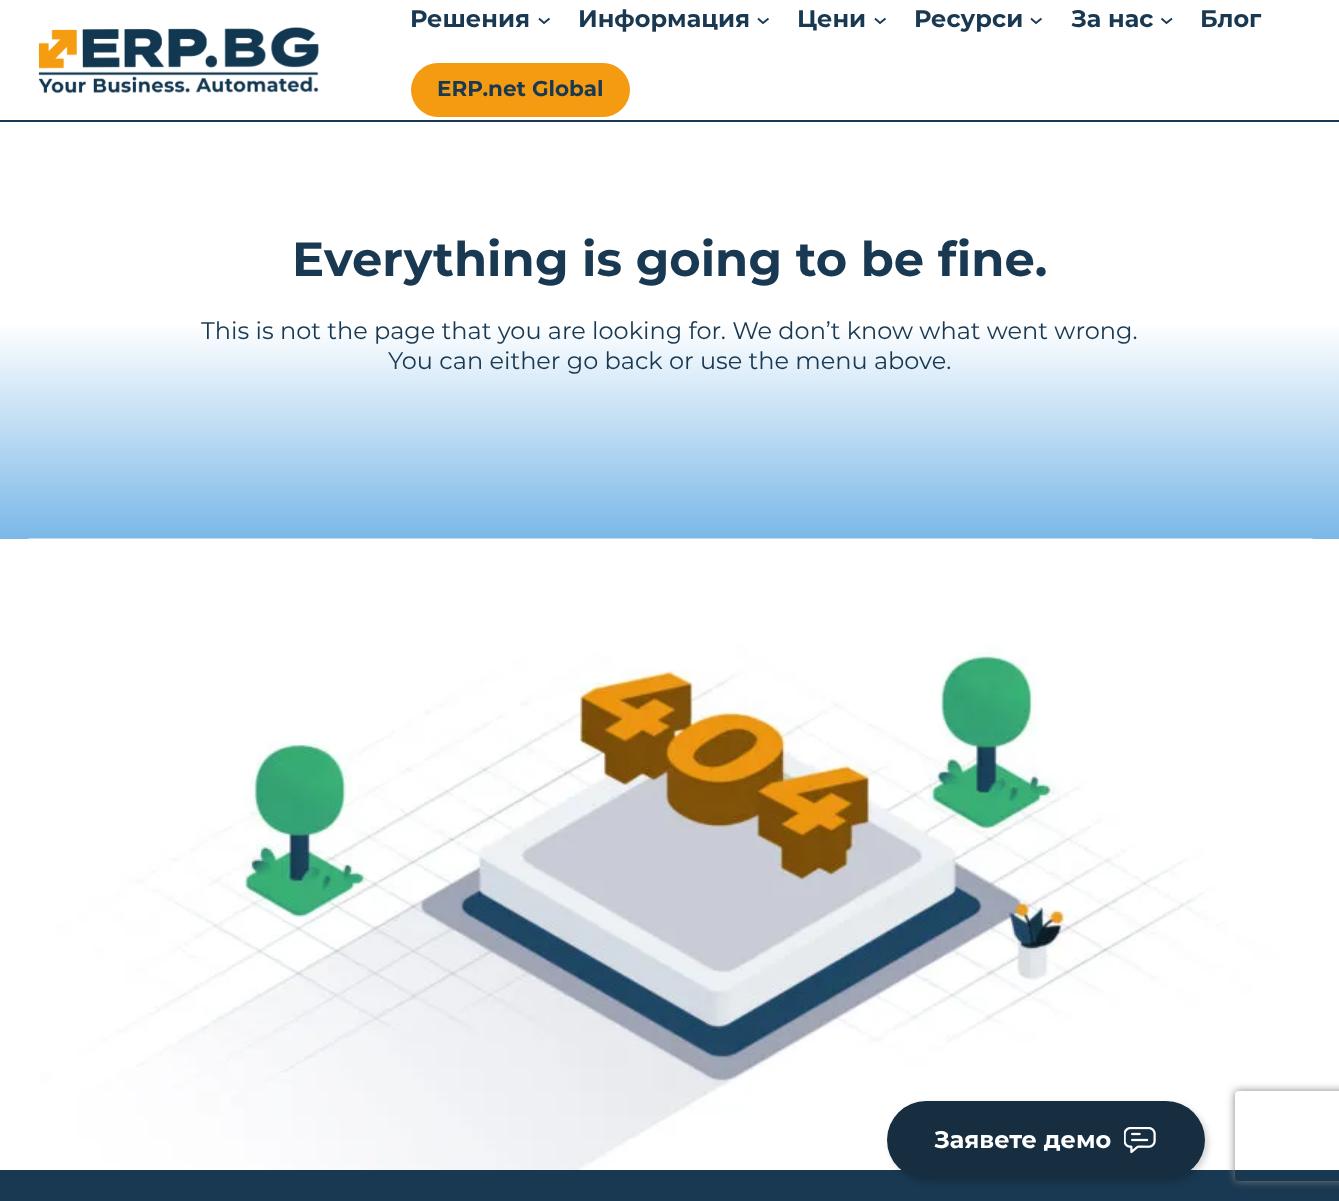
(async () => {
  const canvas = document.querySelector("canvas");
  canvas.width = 1339;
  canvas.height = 1201;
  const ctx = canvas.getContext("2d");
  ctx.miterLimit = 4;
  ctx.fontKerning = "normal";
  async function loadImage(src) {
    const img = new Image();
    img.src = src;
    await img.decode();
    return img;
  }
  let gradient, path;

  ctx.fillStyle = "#ffffff";
  ctx.fillRect(0, 0, 1339, 1201);
  ctx.fillStyle = "#193851";
  ctx.fillRect(0, 120, 1339, 2);
  ctx.drawImage(await loadImage("img/1.png"), 38, 27, 281, 67);
  path = new Path2D("M539 18.5L544 23L549.5 18.5");
  ctx.strokeStyle = "#193851";
  ctx.lineWidth = 1.8;
  ctx.stroke(path);
  path = new Path2D("M758 18.5L763 23L768.5 18.5");
  ctx.stroke(path);
  path = new Path2D("M875 18.5L880 23L885.5 18.5");
  ctx.stroke(path);
  path = new Path2D("M1031 18.5L1036 23L1041.5 18.5");
  ctx.stroke(path);
  path = new Path2D("M1161.5 18.5L1166.5 23L1172 18.5");
  ctx.stroke(path);
  ctx.fillStyle = "#f49b11";
  ctx.beginPath();
  ctx.roundRect(411, 63, 219, 54, 27);
  ctx.fill();
  gradient = ctx.createLinearGradient(670, 121, 670, 539);
  gradient.addColorStop(0.48, "#ffffff");
  gradient.addColorStop(0.99, "#7db9e8");
  ctx.fillStyle = gradient;
  ctx.fillRect(0, 326, 1339, 213);
  ctx.drawImage(await loadImage("img/2.png"), 28, 538, 1285, 632);
  ctx.fillStyle = "#193851";
  ctx.fillRect(0, 1170, 1339, 31);
  ctx.fillStyle = "rgba(0, 0, 0, 0.17)";
  ctx.filter = "blur(3px)";
  ctx.beginPath();
  ctx.roundRect(890, 1104, 318, 78, 39);
  ctx.fill();
  ctx.filter = "none";
  ctx.fillStyle = "#172d40";
  ctx.beginPath();
  ctx.roundRect(887, 1101, 318, 78, 39);
  ctx.fill();
  ctx.drawImage(await loadImage("img/3.png"), 1124, 1127, 32, 27);
  ctx.save();
  path = new Path2D("M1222 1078H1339V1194H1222ZM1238 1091H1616C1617.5 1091 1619 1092.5 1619 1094V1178C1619 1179.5 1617.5 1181 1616 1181H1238C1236.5 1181 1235 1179.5 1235 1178V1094C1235 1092.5 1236.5 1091 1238 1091Z");
  ctx.clip(path, "evenodd");
  ctx.fillStyle = "#808080";
  ctx.filter = "blur(4px)";
  ctx.beginPath();
  ctx.roundRect(1235, 1091, 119, 90, 3);
  ctx.fill();
  ctx.filter = "none";
  ctx.restore();
  ctx.font = "bold 24px Montserrat";
  ctx.fillStyle = "#193851";
  for (const [text, x, y] of [
    ["Решения", 410, 27],
    ["Информация", 578, 27],
    ["Цени", 797, 27],
    ["Ресурси", 914, 27],
    ["За нас", 1071, 27],
    ["Блог", 1200, 27],
  ]) {
    ctx.fillText(text, x, y);
  }
  ctx.font = "bold 21.5px Montserrat";
  ctx.fillText("ERP.net Global", 437, 96);
  ctx.font = "bold 48px Montserrat";
  ctx.fillText("Everything is going to be fine.", 292, 276);
  ctx.font = "24px Montserrat";
  ctx.fillText("This is not the page that you are looking for. We don’t know what went wrong.", 201, 339);
  ctx.fillText("You can either go back or use the menu above.", 388, 369);
  ctx.font = "bold 24px Montserrat";
  ctx.fillStyle = "#ffffff";
  ctx.fillText("Заявете демо", 934, 1148);
})();
